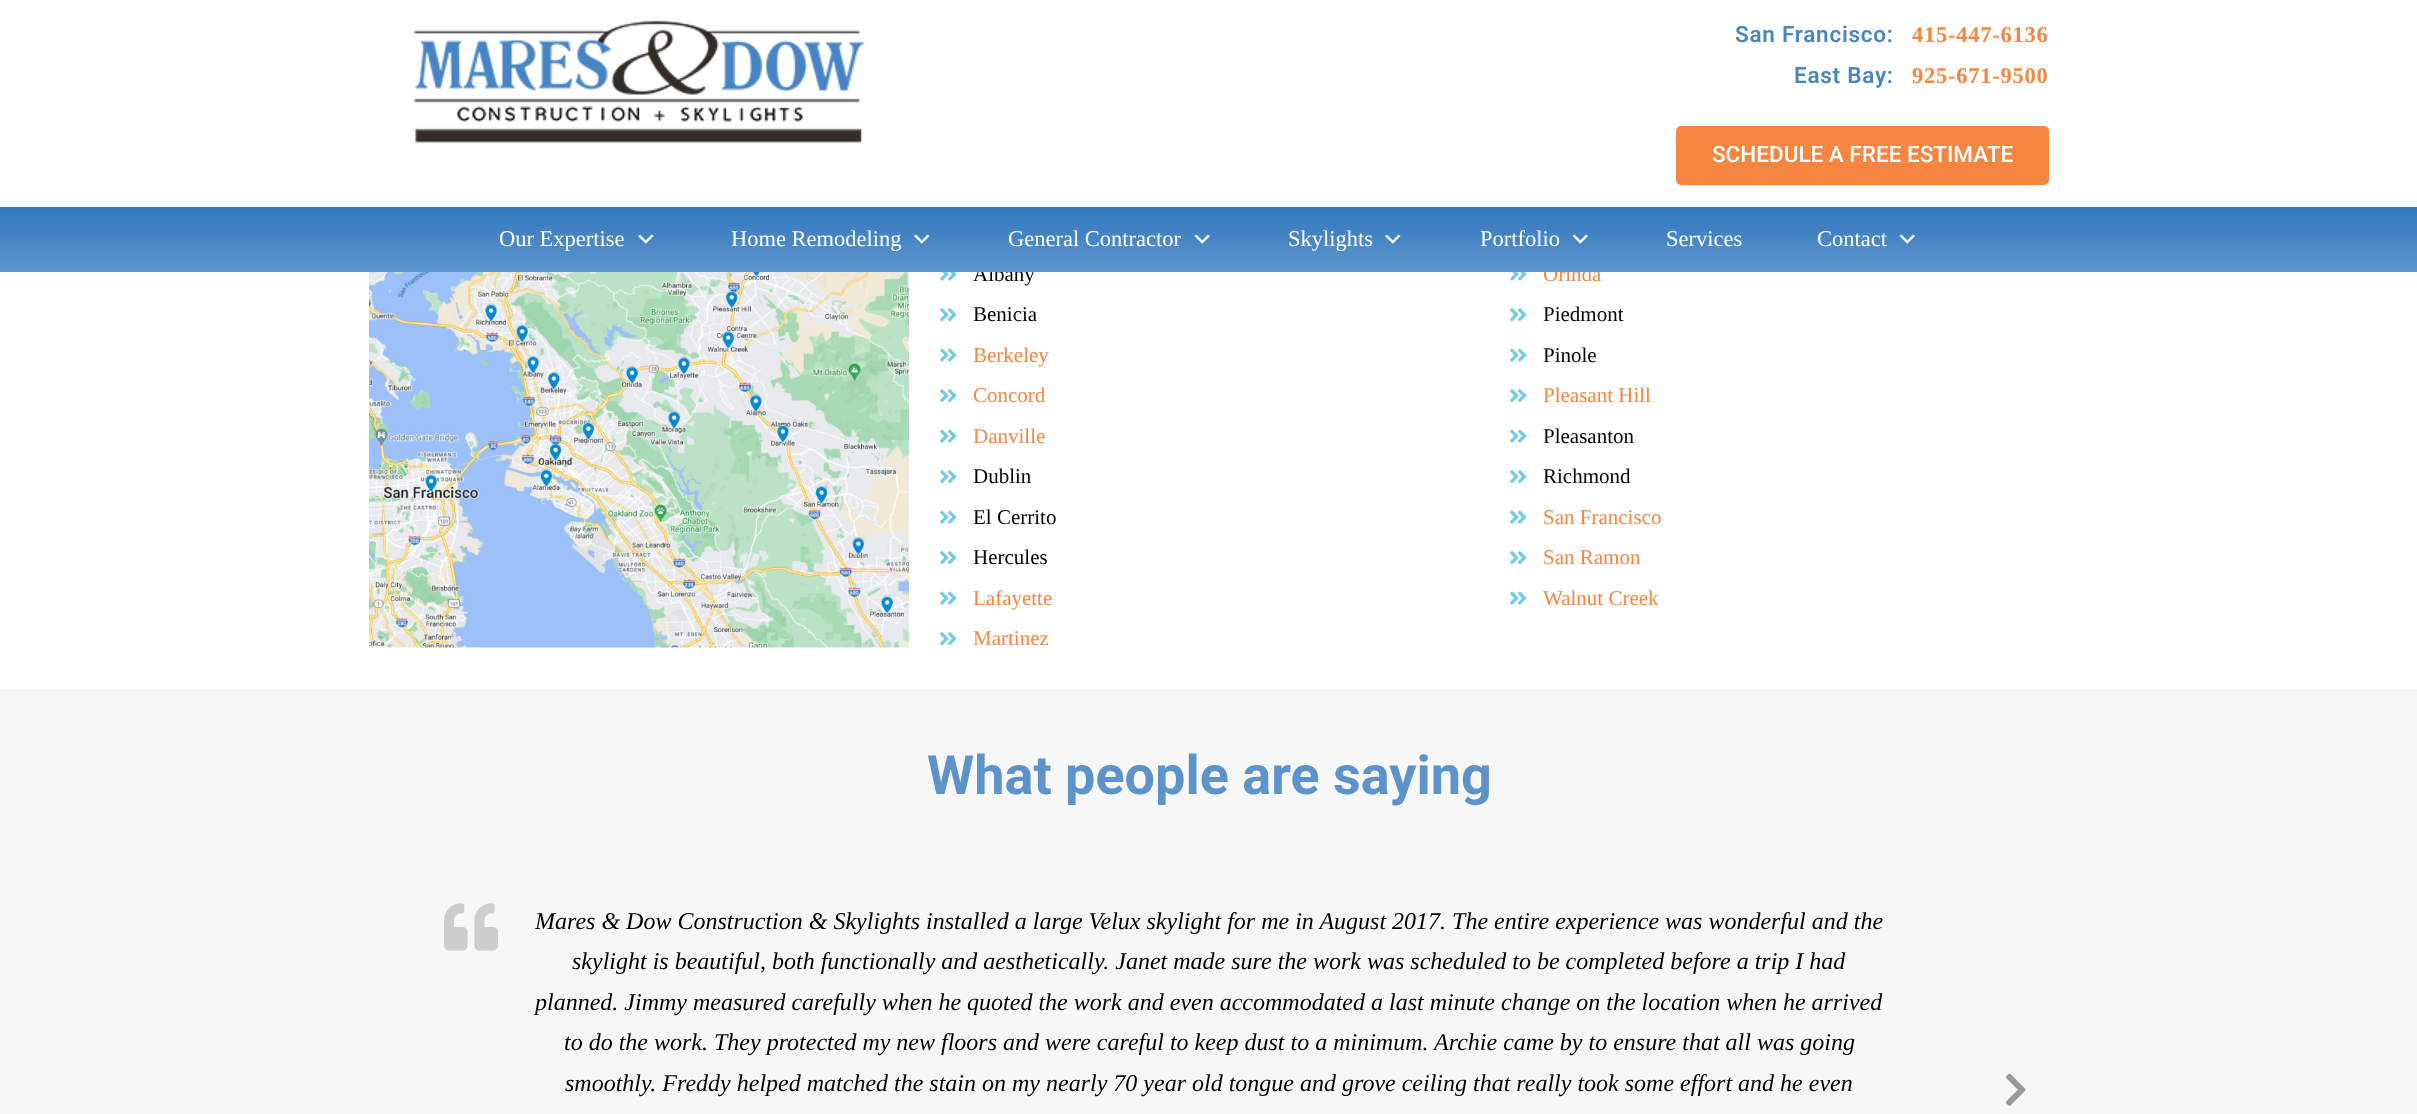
(async () => {
  const canvas = document.querySelector("canvas");
  canvas.width = 2417;
  canvas.height = 1114;
  const ctx = canvas.getContext("2d");
  ctx.miterLimit = 4;
  ctx.fontKerning = "normal";
  async function loadImage(src) {
    const img = new Image();
    img.src = src;
    await img.decode();
    return img;
  }
  let gradient;

  ctx.fillStyle = "#ffffff";
  ctx.fillRect(0, 0, 2417, 1114);
  ctx.drawImage(await loadImage("img/1.png"), 413, 20, 452, 123);
  ctx.fillStyle = "#f6853f";
  ctx.beginPath();
  ctx.roundRect(1676, 126, 373, 59, 5);
  ctx.fill();
  ctx.drawImage(await loadImage("img/4.png"), 369, 272, 540, 376);
  ctx.drawImage(await loadImage("img/5.png"), 940, 272, 17, 9);
  ctx.drawImage(await loadImage("img/6.png"), 940, 308, 17, 14);
  ctx.drawImage(await loadImage("img/7.png"), 940, 348, 17, 14);
  ctx.drawImage(await loadImage("img/6.png"), 940, 389, 17, 14);
  ctx.drawImage(await loadImage("img/7.png"), 940, 429, 17, 14);
  ctx.drawImage(await loadImage("img/6.png"), 940, 470, 17, 14);
  ctx.drawImage(await loadImage("img/7.png"), 940, 510, 17, 14);
  ctx.drawImage(await loadImage("img/6.png"), 940, 551, 17, 14);
  ctx.drawImage(await loadImage("img/7.png"), 940, 591, 17, 14);
  ctx.drawImage(await loadImage("img/6.png"), 940, 632, 17, 14);
  ctx.drawImage(await loadImage("img/5.png"), 1510, 272, 17, 9);
  ctx.drawImage(await loadImage("img/6.png"), 1510, 308, 17, 14);
  ctx.drawImage(await loadImage("img/7.png"), 1510, 348, 17, 14);
  ctx.drawImage(await loadImage("img/6.png"), 1510, 389, 17, 14);
  ctx.drawImage(await loadImage("img/7.png"), 1510, 429, 17, 14);
  ctx.drawImage(await loadImage("img/6.png"), 1510, 470, 17, 14);
  ctx.drawImage(await loadImage("img/7.png"), 1510, 510, 17, 14);
  ctx.drawImage(await loadImage("img/6.png"), 1510, 551, 17, 14);
  ctx.drawImage(await loadImage("img/7.png"), 1510, 591, 17, 14);
  ctx.fillStyle = "#f7f7f7";
  ctx.fillRect(0, 689, 2417, 425);
  ctx.drawImage(await loadImage("img/8.png"), 444, 903, 54, 48);
  ctx.drawImage(await loadImage("img/9.png"), 2006, 1073, 20, 33);
  ctx.letterSpacing = "0.75px";
  ctx.font = "600 22.5px Roboto";
  ctx.fillStyle = "#4a85c1";
  ctx.fillText("San Francisco:", 1735, 42);
  ctx.font = "bold 22.5px Liberation Serif";
  ctx.fillStyle = "#f6853f";
  ctx.fillText("415-447-6136", 1912, 42);
  ctx.font = "600 22.5px Roboto";
  ctx.fillStyle = "#4a85c1";
  ctx.fillText("East Bay:", 1794, 83);
  ctx.font = "bold 22.5px Liberation Serif";
  ctx.fillStyle = "#f6853f";
  ctx.fillText("925-671-9500", 1912, 83);
  ctx.letterSpacing = "0px";
  ctx.font = "500 22.5px Roboto";
  ctx.fillStyle = "#ffffff";
  ctx.fillText("SCHEDULE A FREE ESTIMATE", 1712, 162);
  ctx.font = "21px Liberation Serif";
  ctx.fillStyle = "#000000";
  ctx.fillText("Albany", 973, 281);
  ctx.fillText("Benicia", 973, 321);
  ctx.fillStyle = "#f6853f";
  for (const [text, x, y] of [
    ["Berkeley", 973, 362],
    ["Concord", 973, 402],
    ["Danville", 973, 443],
  ]) {
    ctx.fillText(text, x, y);
  }
  ctx.fillStyle = "#000000";
  for (const [text, x, y] of [
    ["Dublin", 973, 483],
    ["El Cerrito", 973, 524],
    ["Hercules", 973, 564],
  ]) {
    ctx.fillText(text, x, y);
  }
  ctx.fillStyle = "#f6853f";
  for (const [text, x, y] of [
    ["Lafayette", 973, 605],
    ["Martinez", 973, 645],
    ["Orinda", 1543, 281],
  ]) {
    ctx.fillText(text, x, y);
  }
  gradient = ctx.createLinearGradient(1209, 207, 1209, 272);
  gradient.addColorStop(0, "#3177bd");
  gradient.addColorStop(1, "#5d95ce");
  ctx.fillStyle = gradient;
  ctx.fillRect(0, 207, 2417, 65);
  ctx.drawImage(await loadImage("img/3.png"), 1899, 234, 16, 10);
  ctx.font = "22.5px Liberation Serif";
  ctx.fillStyle = "#ffffff";
  ctx.fillText("Contact", 1817, 246);
  ctx.fillText("Services", 1666, 246);
  ctx.drawImage(await loadImage("img/3.png"), 1572, 234, 16, 10);
  ctx.fillText("Portfolio", 1480, 246);
  ctx.drawImage(await loadImage("img/2.png"), 1385, 234, 16, 10);
  ctx.fillText("Skylights", 1288, 246);
  ctx.drawImage(await loadImage("img/3.png"), 1194, 234, 16, 10);
  ctx.fillText("General Contractor", 1008, 246);
  ctx.drawImage(await loadImage("img/2.png"), 914, 234, 16, 10);
  ctx.fillText("Home Remodeling", 731, 246);
  ctx.drawImage(await loadImage("img/2.png"), 638, 234, 16, 10);
  ctx.fillText("Our Expertise", 499, 246);
  ctx.font = "21px Liberation Serif";
  ctx.fillStyle = "#000000";
  ctx.fillText("Piedmont", 1543, 321);
  ctx.fillText("Pinole", 1543, 362);
  ctx.fillStyle = "#f6853f";
  ctx.fillText("Pleasant Hill", 1543, 402);
  ctx.fillStyle = "#000000";
  ctx.fillText("Pleasanton", 1543, 443);
  ctx.fillText("Richmond", 1543, 483);
  ctx.fillStyle = "#f6853f";
  for (const [text, x, y] of [
    ["San Francisco", 1543, 524],
    ["San Ramon", 1543, 564],
    ["Walnut Creek", 1543, 605],
  ]) {
    ctx.fillText(text, x, y);
  }
  ctx.font = "bold 54px Roboto";
  ctx.fillStyle = "#5c93ca";
  ctx.fillText("What people are saying", 927, 794);
  ctx.font = "italic 24px Liberation Serif";
  ctx.fillStyle = "#000000";
  for (const [text, x, y] of [
    ["Mares & Dow Construction & Skylights installed a large Velux skylight for me in August 2017. The entire experience was wonderful and the", 535, 929],
    ["skylight is beautiful, both functionally and aesthetically. Janet made sure the work was scheduled to be completed before a trip I had", 572, 969],
    ["planned. Jimmy measured carefully when he quoted the work and even accommodated a last minute change on the location when he arrived", 535, 1010],
    ["to do the work. They protected my new floors and were careful to keep dust to a minimum. Archie came by to ensure that all was going", 564, 1050],
    ["smoothly. Freddy helped matched the stain on my nearly 70 year old tongue and grove ceiling that really took some effort and he even", 565, 1091],
  ]) {
    ctx.fillText(text, x, y);
  }
})();
